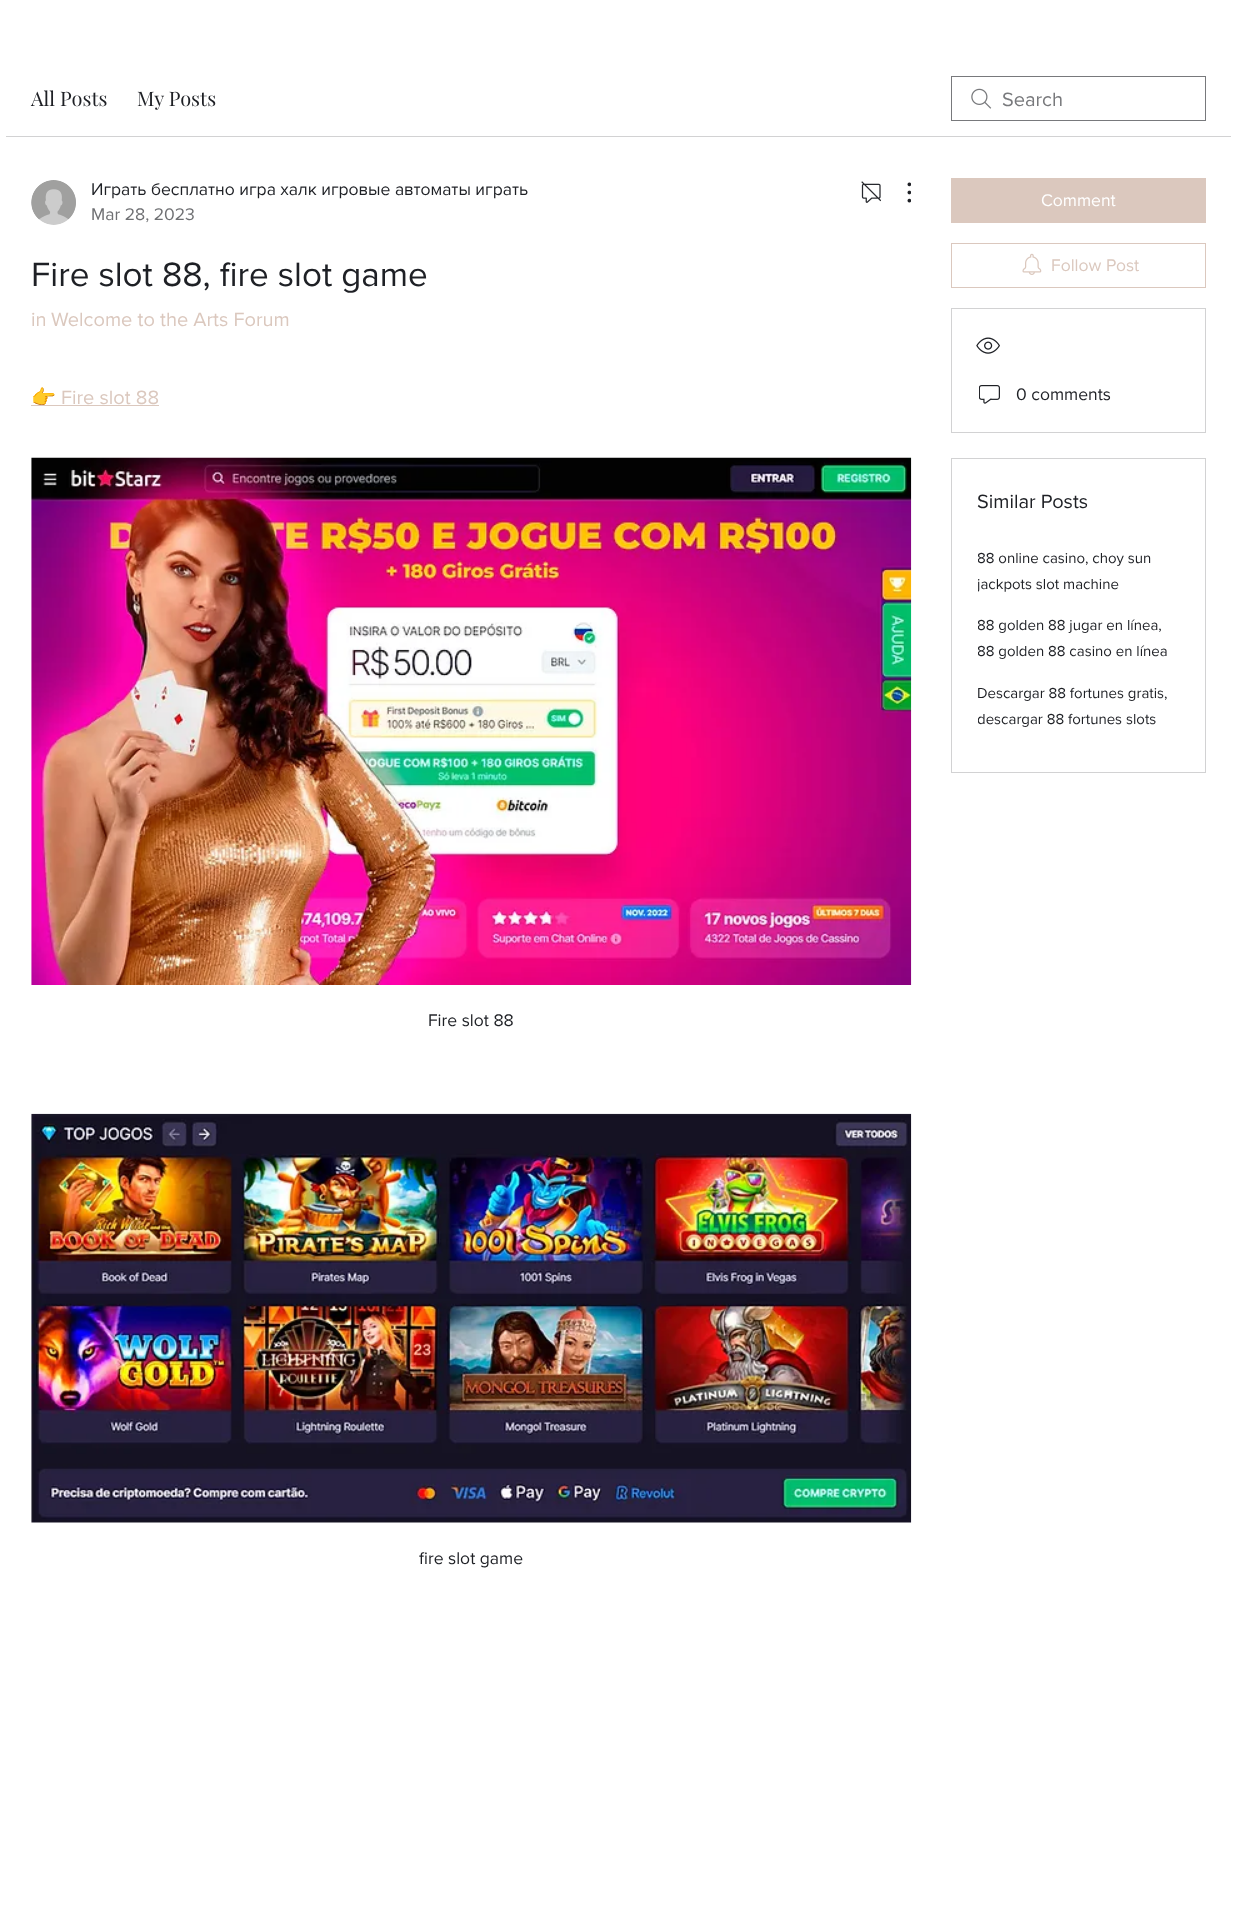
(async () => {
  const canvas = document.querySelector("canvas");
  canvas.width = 1236;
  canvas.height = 1923;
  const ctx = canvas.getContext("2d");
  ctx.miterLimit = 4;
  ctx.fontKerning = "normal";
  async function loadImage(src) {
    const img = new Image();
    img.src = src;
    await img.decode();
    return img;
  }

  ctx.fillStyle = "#ffffff";
  ctx.fillRect(0, 0, 1236, 1923);
  ctx.fillStyle = "#d2d2d3";
  ctx.fillRect(6, 136, 1225, 1);
  ctx.drawImage(await loadImage("img/1.png"), 971, 88, 21, 21);
  ctx.strokeStyle = "#78797c";
  ctx.strokeRect(951.5, 76.5, 254, 44);
  ctx.drawImage(await loadImage("img/2.png"), 31, 180, 45, 45);
  ctx.drawImage(await loadImage("img/3.png"), 861, 181, 20, 22);
  ctx.drawImage(await loadImage("img/4.png"), 907, 182, 4, 21);
  ctx.fillStyle = "#dbc8be";
  ctx.fillRect(31, 405, 128, 1);
  ctx.drawImage(await loadImage("img/5.png"), 31, 457, 881, 528);
  ctx.drawImage(await loadImage("img/6.png"), 31, 1113, 881, 410);
  ctx.fillRect(951, 178, 255, 45);
  ctx.strokeStyle = "#dbc8be";
  ctx.strokeRect(951.5, 243.5, 254, 44);
  ctx.drawImage(await loadImage("img/7.png"), 1022, 253, 20, 22);
  ctx.strokeStyle = "#d2d2d3";
  ctx.strokeRect(951.5, 308.5, 254, 124);
  ctx.drawImage(await loadImage("img/8.png"), 976, 337, 24, 17);
  ctx.drawImage(await loadImage("img/9.png"), 979, 385, 21, 19);
  ctx.strokeRect(951.5, 458.5, 254, 314);
  ctx.font = "20px Playfair Display";
  ctx.fillStyle = "#1e2025";
  ctx.fillText("All Posts", 31, 106);
  ctx.fillText("My Posts", 137, 106);
  ctx.font = "20px 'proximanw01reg'";
  ctx.fillStyle = "#78797c";
  ctx.fillText("Search", 1002, 106);
  ctx.font = "17.5px 'proximanw01reg'";
  ctx.fillStyle = "#1e2025";
  ctx.fillText("Играть бесплатно игра халк игровые автоматы играть", 91, 195);
  ctx.fillStyle = "#6f7073";
  ctx.fillText("Mar 28, 2023", 91, 220);
  ctx.font = "35px 'proximanw01reg'";
  ctx.fillStyle = "#1e2025";
  ctx.fillText("Fire slot 88, fire slot game", 31, 286);
  ctx.font = "20px 'proximanw01reg'";
  ctx.fillStyle = "#dbc8be";
  ctx.fillText("in", 31, 326);
  ctx.fillText("Welcome to the Arts Forum", 51, 326);
  ctx.save();
  ctx.beginPath();
  ctx.rect(31, 353, 880, 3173);
  ctx.clip();
  ctx.font = "20px Noto Color Emoji";
  ctx.fillText("👉", 31, 404);
  ctx.restore();
  ctx.fillText("Fire slot 88", 61, 404);
  ctx.font = "17.5px 'proximanw01reg'";
  ctx.fillStyle = "#1e2025";
  ctx.fillText("Fire slot 88", 428, 1026);
  ctx.fillText("fire slot game", 419, 1564);
  ctx.fillStyle = "#ffffff";
  ctx.fillText("Comment", 1041, 206);
  ctx.fillStyle = "#dbc8be";
  ctx.fillText("Follow Post", 1051, 271);
  ctx.fillStyle = "#1e2025";
  ctx.fillText("0 comments", 1016, 400);
  ctx.font = "20px 'proximanw01reg'";
  ctx.fillText("Similar Posts", 977, 508);
  ctx.save();
  ctx.beginPath();
  ctx.rect(978, 544, 202, 52);
  ctx.clip();
  ctx.font = "15px 'proximanw01reg'";
  ctx.fillText("88 online casino, choy sun", 977, 563);
  ctx.fillText("jackpots slot machine", 977, 589);
  ctx.restore();
  ctx.save();
  ctx.beginPath();
  ctx.rect(978, 611, 202, 53);
  ctx.clip();
  ctx.font = "15px 'proximanw01reg'";
  ctx.fillText("88 golden 88 jugar en línea,", 977, 630);
  ctx.fillText("88 golden 88 casino en línea", 977, 656);
  ctx.restore();
  ctx.font = "15px 'proximanw01reg'";
  ctx.fillText("Descargar 88 fortunes gratis,", 977, 698);
  ctx.save();
  ctx.beginPath();
  ctx.rect(978, 679, 202, 52);
  ctx.clip();
  ctx.fillText("descargar 88 fortunes slots", 977, 724);
  ctx.restore();
})();
